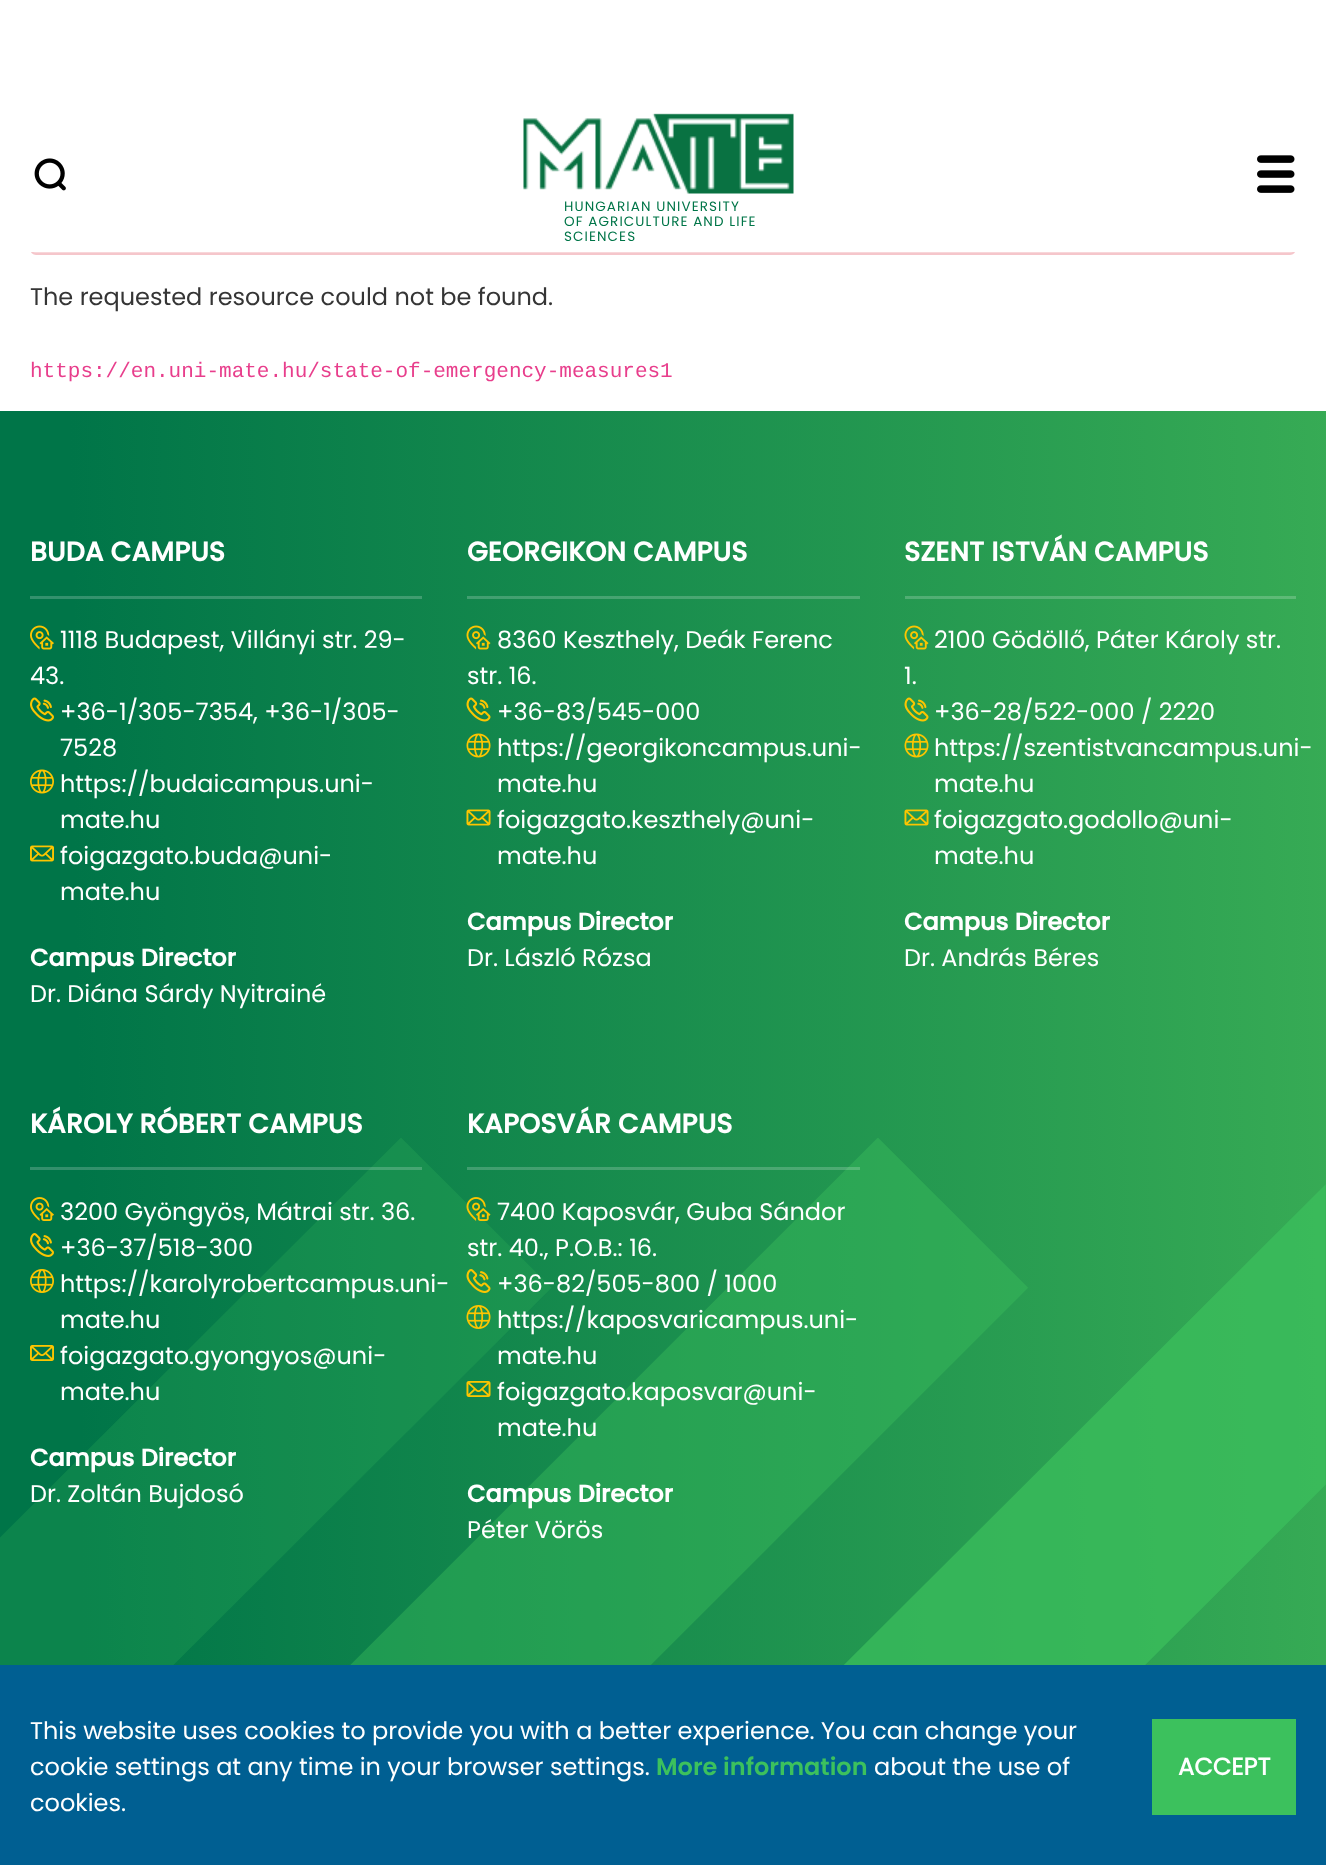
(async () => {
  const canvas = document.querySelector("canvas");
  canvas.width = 1326;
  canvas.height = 1865;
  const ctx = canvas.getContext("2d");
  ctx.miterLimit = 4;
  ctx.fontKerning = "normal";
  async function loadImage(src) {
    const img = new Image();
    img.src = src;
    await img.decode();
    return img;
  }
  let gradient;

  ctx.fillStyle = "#ffffff";
  ctx.fillRect(0, 0, 1326, 1865);
  ctx.fillStyle = "#f8d7da";
  ctx.beginPath();
  ctx.roundRect(31, 172, 1264, 82, 5);
  ctx.fill();
  ctx.strokeStyle = "#f5c6cb";
  ctx.lineWidth = 2;
  ctx.stroke();
  ctx.fillStyle = "#ffffff";
  ctx.fillRect(30, 171, 1266, 81);
  ctx.drawImage(await loadImage("img/1.png"), 34, 158, 32, 33);
  ctx.drawImage(await loadImage("img/2.png"), 1257, 155, 38, 38);
  ctx.drawImage(await loadImage("img/3.png"), 523, 113, 271, 81);
  gradient = ctx.createLinearGradient(-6.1, 1046, 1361, 1033);
  gradient.addColorStop(0.06, "#007548");
  gradient.addColorStop(1, "#38ac55");
  ctx.fillStyle = gradient;
  ctx.fillRect(0, 411, 1326, 1254);
  gradient = ctx.createLinearGradient(-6.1, 1046, 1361, 1033);
  gradient.addColorStop(0.06, "#33916d");
  gradient.addColorStop(1, "#60bd77");
  ctx.fillStyle = gradient;
  ctx.fillRect(905, 596, 391, 3);
  ctx.fillRect(467, 596, 393, 3);
  ctx.fillRect(30, 596, 392, 3);
  ctx.drawImage(await loadImage("img/4.png"), 30, 625, 24, 25);
  ctx.drawImage(await loadImage("img/5.png"), 30, 697, 24, 25);
  ctx.drawImage(await loadImage("img/6.png"), 30, 769, 24, 25);
  ctx.drawImage(await loadImage("img/7.png"), 30, 845, 24, 17);
  ctx.drawImage(await loadImage("img/8.png"), 466, 625, 25, 25);
  ctx.drawImage(await loadImage("img/9.png"), 466, 697, 25, 25);
  ctx.drawImage(await loadImage("img/10.png"), 466, 733, 25, 25);
  ctx.drawImage(await loadImage("img/11.png"), 466, 809, 25, 17);
  ctx.drawImage(await loadImage("img/12.png"), 904, 625, 25, 25);
  ctx.drawImage(await loadImage("img/13.png"), 904, 697, 25, 25);
  ctx.drawImage(await loadImage("img/14.png"), 904, 733, 25, 25);
  ctx.drawImage(await loadImage("img/15.png"), 904, 809, 25, 17);
  ctx.drawImage(await loadImage("img/24.png"), 0, 1138, 1326, 527);
  ctx.fillStyle = "rgba(255, 255, 255, 0.2)";
  ctx.fillRect(30, 1167, 392, 3);
  ctx.drawImage(await loadImage("img/16.png"), 30, 1197, 24, 24);
  ctx.drawImage(await loadImage("img/17.png"), 30, 1233, 24, 24);
  ctx.drawImage(await loadImage("img/18.png"), 30, 1269, 24, 24);
  ctx.drawImage(await loadImage("img/19.png"), 30, 1345, 24, 16);
  ctx.fillRect(467, 1167, 393, 3);
  ctx.drawImage(await loadImage("img/20.png"), 466, 1197, 25, 24);
  ctx.drawImage(await loadImage("img/21.png"), 466, 1269, 25, 24);
  ctx.drawImage(await loadImage("img/22.png"), 466, 1305, 25, 24);
  ctx.drawImage(await loadImage("img/23.png"), 466, 1381, 25, 16);
  ctx.fillStyle = "#005f92";
  ctx.fillRect(0, 1665, 1326, 200);
  ctx.fillStyle = "#3cc15d";
  ctx.fillRect(1152, 1719, 144, 96);
  ctx.letterSpacing = "1.1px";
  ctx.font = "13.5px Poppins";
  ctx.fillStyle = "#007548";
  for (const [text, x, y] of [
    ["HUNGARIAN UNIVERSITY", 564, 211],
    ["OF AGRICULTURE AND LIFE", 564, 226],
    ["SCIENCES", 564, 241],
  ]) {
    ctx.fillText(text, x, y);
  }
  ctx.letterSpacing = "0px";
  ctx.font = "24px Poppins";
  ctx.fillStyle = "#353535";
  ctx.fillText("The requested resource could not be found.", 30, 305);
  ctx.font = "21px Liberation Mono";
  ctx.fillStyle = "#e83e8c";
  ctx.fillText("https://en.uni-mate.hu/state-of-emergency-measures1", 30, 377);
  ctx.font = "bold 27px Poppins";
  ctx.fillStyle = "#ffffff";
  ctx.fillText("BUDA CAMPUS", 30, 561);
  ctx.font = "24px Poppins";
  for (const [text, x, y] of [
    ["1118 Budapest, Villányi str. 29-", 60, 648],
    ["43.", 30, 684],
    ["+36-1/305-7354, +36-1/305-", 60, 720],
    ["7528", 60, 756],
    ["https://budaicampus.uni-", 60, 792],
    ["mate.hu", 60, 828],
    ["foigazgato.buda@uni-", 60, 864],
    ["mate.hu", 60, 900],
  ]) {
    ctx.fillText(text, x, y);
  }
  ctx.font = "bold 24px Poppins";
  ctx.fillText("Campus Director", 30, 966);
  ctx.font = "24px Poppins";
  ctx.fillText("Dr. Diána Sárdy Nyitrainé", 30, 1002);
  ctx.font = "bold 27px Poppins";
  ctx.fillText("GEORGIKON CAMPUS", 467, 561);
  ctx.font = "24px Poppins";
  for (const [text, x, y] of [
    ["8360 Keszthely, Deák Ferenc", 497, 648],
    ["str. 16.", 467, 684],
    ["+36-83/545-000", 497, 720],
    ["https://georgikoncampus.uni-", 497, 756],
    ["mate.hu", 497, 792],
    ["foigazgato.keszthely@uni-", 497, 828],
    ["mate.hu", 497, 864],
  ]) {
    ctx.fillText(text, x, y);
  }
  ctx.font = "bold 24px Poppins";
  ctx.fillText("Campus Director", 467, 930);
  ctx.font = "24px Poppins";
  ctx.fillText("Dr. László Rózsa", 467, 966);
  ctx.font = "bold 27px Poppins";
  ctx.fillText("SZENT ISTVÁN CAMPUS", 904, 561);
  ctx.font = "24px Poppins";
  for (const [text, x, y] of [
    ["2100 Gödöllő, Páter Károly str.", 934, 648],
    ["1.", 904, 684],
    ["+36-28/522-000 / 2220", 934, 720],
    ["https://szentistvancampus.uni-", 934, 756],
    ["mate.hu", 934, 792],
    ["foigazgato.godollo@uni-", 934, 828],
    ["mate.hu", 934, 864],
  ]) {
    ctx.fillText(text, x, y);
  }
  ctx.font = "bold 24px Poppins";
  ctx.fillText("Campus Director", 904, 930);
  ctx.font = "24px Poppins";
  ctx.fillText("Dr. András Béres", 904, 966);
  ctx.font = "bold 27px Poppins";
  ctx.fillText("KÁROLY RÓBERT CAMPUS", 30, 1133);
  ctx.font = "24px Poppins";
  for (const [text, x, y] of [
    ["3200 Gyöngyös, Mátrai str. 36.", 60, 1220],
    ["+36-37/518-300", 60, 1256],
    ["https://karolyrobertcampus.uni-", 60, 1292],
    ["mate.hu", 60, 1328],
    ["foigazgato.gyongyos@uni-", 60, 1364],
    ["mate.hu", 60, 1400],
  ]) {
    ctx.fillText(text, x, y);
  }
  ctx.font = "bold 24px Poppins";
  ctx.fillText("Campus Director", 30, 1466);
  ctx.font = "24px Poppins";
  ctx.fillText("Dr. Zoltán Bujdosó", 30, 1502);
  ctx.font = "bold 27px Poppins";
  ctx.fillText("KAPOSVÁR CAMPUS", 467, 1133);
  ctx.font = "24px Poppins";
  for (const [text, x, y] of [
    ["7400 Kaposvár, Guba Sándor", 497, 1220],
    ["str. 40., P.O.B.: 16.", 467, 1256],
    ["+36-82/505-800 / 1000", 497, 1292],
    ["https://kaposvaricampus.uni-", 497, 1328],
    ["mate.hu", 497, 1364],
    ["foigazgato.kaposvar@uni-", 497, 1400],
    ["mate.hu", 497, 1436],
  ]) {
    ctx.fillText(text, x, y);
  }
  ctx.font = "bold 24px Poppins";
  ctx.fillText("Campus Director", 467, 1502);
  ctx.font = "24px Poppins";
  for (const [text, x, y] of [
    ["Péter Vörös", 467, 1538],
    ["This website uses cookies to provide you with a better experience. You can change your", 30, 1739],
    ["cookie settings at any time in your browser settings.", 30, 1775],
  ]) {
    ctx.fillText(text, x, y);
  }
  ctx.font = "600 24px Poppins";
  ctx.fillStyle = "#3cc15d";
  ctx.fillText("More information", 656, 1775);
  ctx.font = "24px Poppins";
  ctx.fillStyle = "#ffffff";
  ctx.fillText("about the use of", 874, 1775);
  ctx.fillText("cookies.", 30, 1811);
  ctx.font = "bold 24px 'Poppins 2'";
  ctx.fillText("ACCEPT", 1178, 1775);
})();
